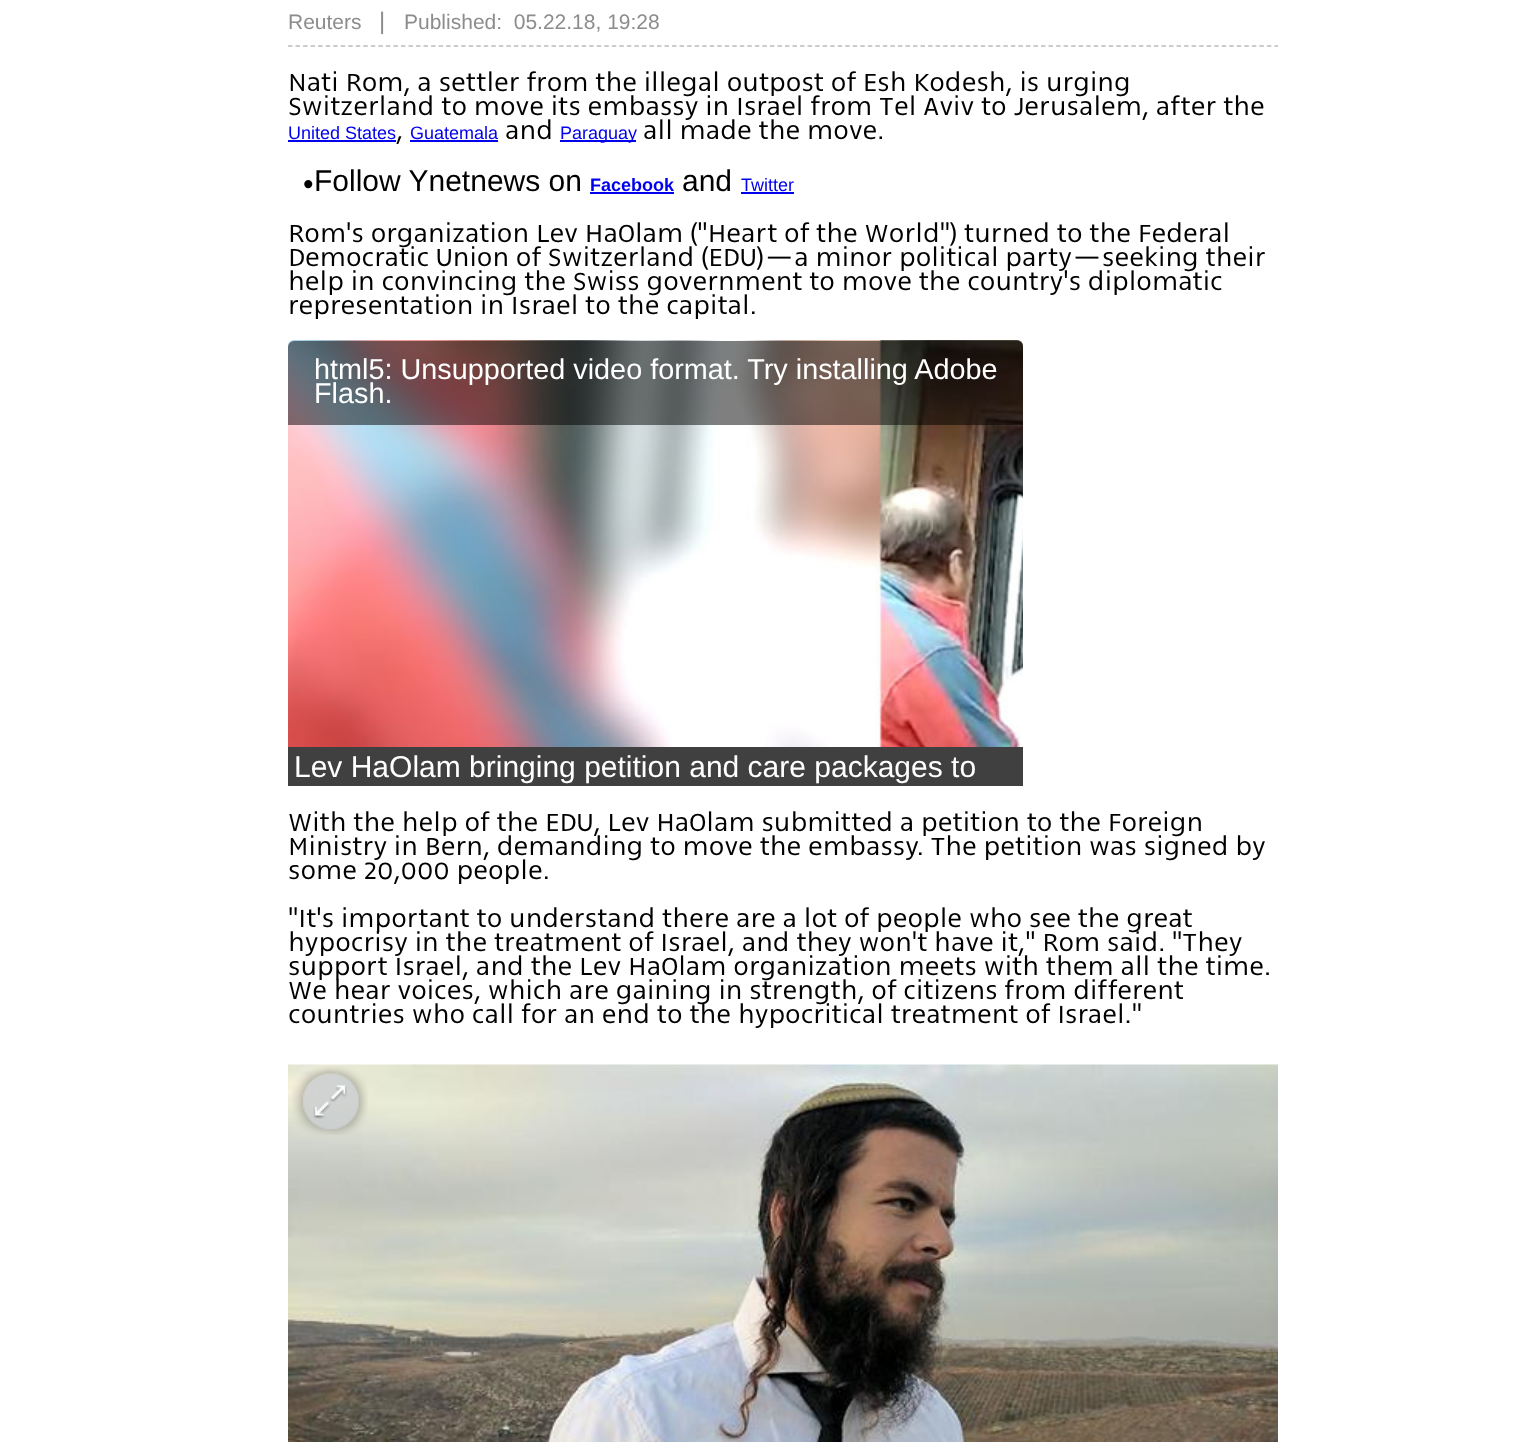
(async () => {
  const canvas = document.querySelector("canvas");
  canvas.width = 1536;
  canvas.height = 1442;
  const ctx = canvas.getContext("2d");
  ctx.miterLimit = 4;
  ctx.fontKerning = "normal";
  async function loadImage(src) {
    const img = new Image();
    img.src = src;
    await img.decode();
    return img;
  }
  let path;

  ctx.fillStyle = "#ffffff";
  ctx.fillRect(0, 0, 1536, 1442);
  path = new Path2D("M288 46H1278");
  ctx.strokeStyle = "#bcbcbc";
  ctx.lineWidth = 1.5;
  ctx.setLineDash([4.5, 3.03]);
  ctx.stroke(path);
  for (const [x, y, w, h, color] of [
    [288, 140, 108, 2, "#0000ee"],
    [410, 140, 88, 2, "#0000ee"],
    [560, 140, 76, 2, "#0000ee"],
    [590, 192, 84, 2, "#0000ee"],
    [741, 192, 53, 2, "#0000ee"],
  ]) {
    ctx.fillStyle = color;
    ctx.fillRect(x, y, w, h);
  }
  ctx.drawImage(await loadImage("img/1.png"), 288, 340, 735, 407);
  ctx.fillStyle = "rgba(0, 0, 0, 0.5)";
  ctx.beginPath();
  ctx.roundRect(288, 341, 735, 84, [6, 6, 0, 0]);
  ctx.fill();
  ctx.fillStyle = "#404040";
  ctx.fillRect(288, 747, 735, 39);
  ctx.drawImage(await loadImage("img/2.png"), 288, 1064, 990, 378);
  ctx.drawImage(await loadImage("img/3.png"), 292, 1066, 76, 69);
  ctx.font = "21px Liberation Sans";
  ctx.fillStyle = "#8c8c8c";
  ctx.fillText("Reuters", 288, 29);
  ctx.font = "24px Liberation Sans";
  ctx.fillText("|", 379, 29);
  ctx.font = "21px Liberation Sans";
  ctx.fillText("Published:  05.22.18, 19:28", 404, 29);
  ctx.font = "300 30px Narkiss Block";
  ctx.fillStyle = "#000000";
  ctx.fillText("Nati Rom, a settler from the illegal outpost of Esh Kodesh, is urging", 288, 91);
  ctx.fillText("Switzerland to move its embassy in Israel from Tel Aviv to Jerusalem, after the", 288, 115);
  ctx.font = "18px Liberation Sans";
  ctx.fillStyle = "#0000ee";
  ctx.fillText("United States", 288, 139);
  ctx.font = "300 30px Narkiss Block";
  ctx.fillStyle = "#000000";
  ctx.fillText(",", 396, 139);
  ctx.font = "18px Liberation Sans";
  ctx.fillStyle = "#0000ee";
  ctx.fillText("Guatemala", 410, 139);
  ctx.font = "300 30px Narkiss Block";
  ctx.fillStyle = "#000000";
  ctx.fillText("and", 505, 139);
  ctx.font = "18px Liberation Sans";
  ctx.fillStyle = "#0000ee";
  ctx.fillText("Paraguay", 560, 139);
  ctx.font = "300 30px Narkiss Block";
  ctx.fillStyle = "#000000";
  ctx.fillText("all made the move.", 643, 139);
  ctx.font = "30px Liberation Sans";
  ctx.fillText("•", 303, 194);
  ctx.fillText("Follow Ynetnews on", 314, 191);
  ctx.font = "bold 18px Liberation Sans";
  ctx.fillStyle = "#0000ee";
  ctx.fillText("Facebook", 590, 191);
  ctx.font = "30px Liberation Sans";
  ctx.fillStyle = "#000000";
  ctx.fillText("and", 682, 191);
  ctx.font = "18px Liberation Sans";
  ctx.fillStyle = "#0000ee";
  ctx.fillText("Twitter", 741, 191);
  ctx.font = "300 30px Narkiss Block";
  ctx.fillStyle = "#000000";
  for (const [text, x, y] of [
    ["Rom's organization Lev HaOlam (\"Heart of the World\") turned to the Federal", 288, 242],
    ["Democratic Union of Switzerland (EDU)—a minor political party—seeking their", 288, 266],
    ["help in convincing the Swiss government to move the country's diplomatic", 288, 290],
    ["representation in Israel to the capital.", 288, 314],
  ]) {
    ctx.fillText(text, x, y);
  }
  ctx.font = "28.8px Liberation Sans";
  ctx.fillStyle = "#ffffff";
  ctx.fillText("html5: Unsupported video format. Try installing Adobe", 314, 379);
  ctx.fillText("Flash.", 314, 403);
  ctx.font = "30px Liberation Sans";
  ctx.fillText("Lev HaOlam bringing petition and care packages to", 294, 777);
  ctx.font = "300 30px Narkiss Block";
  ctx.fillStyle = "#000000";
  for (const [text, x, y] of [
    ["With the help of the EDU, Lev HaOlam submitted a petition to the Foreign", 288, 831],
    ["Ministry in Bern, demanding to move the embassy. The petition was signed by", 288, 855],
    ["some 20,000 people.", 288, 879],
    ["\"It's important to understand there are a lot of people who see the great", 288, 927],
    ["hypocrisy in the treatment of Israel, and they won't have it,\" Rom said. \"They", 288, 951],
    ["support Israel, and the Lev HaOlam organization meets with them all the time.", 288, 975],
    ["We hear voices, which are gaining in strength, of citizens from different", 288, 999],
    ["countries who call for an end to the hypocritical treatment of Israel.\"", 288, 1023],
  ]) {
    ctx.fillText(text, x, y);
  }
})();
